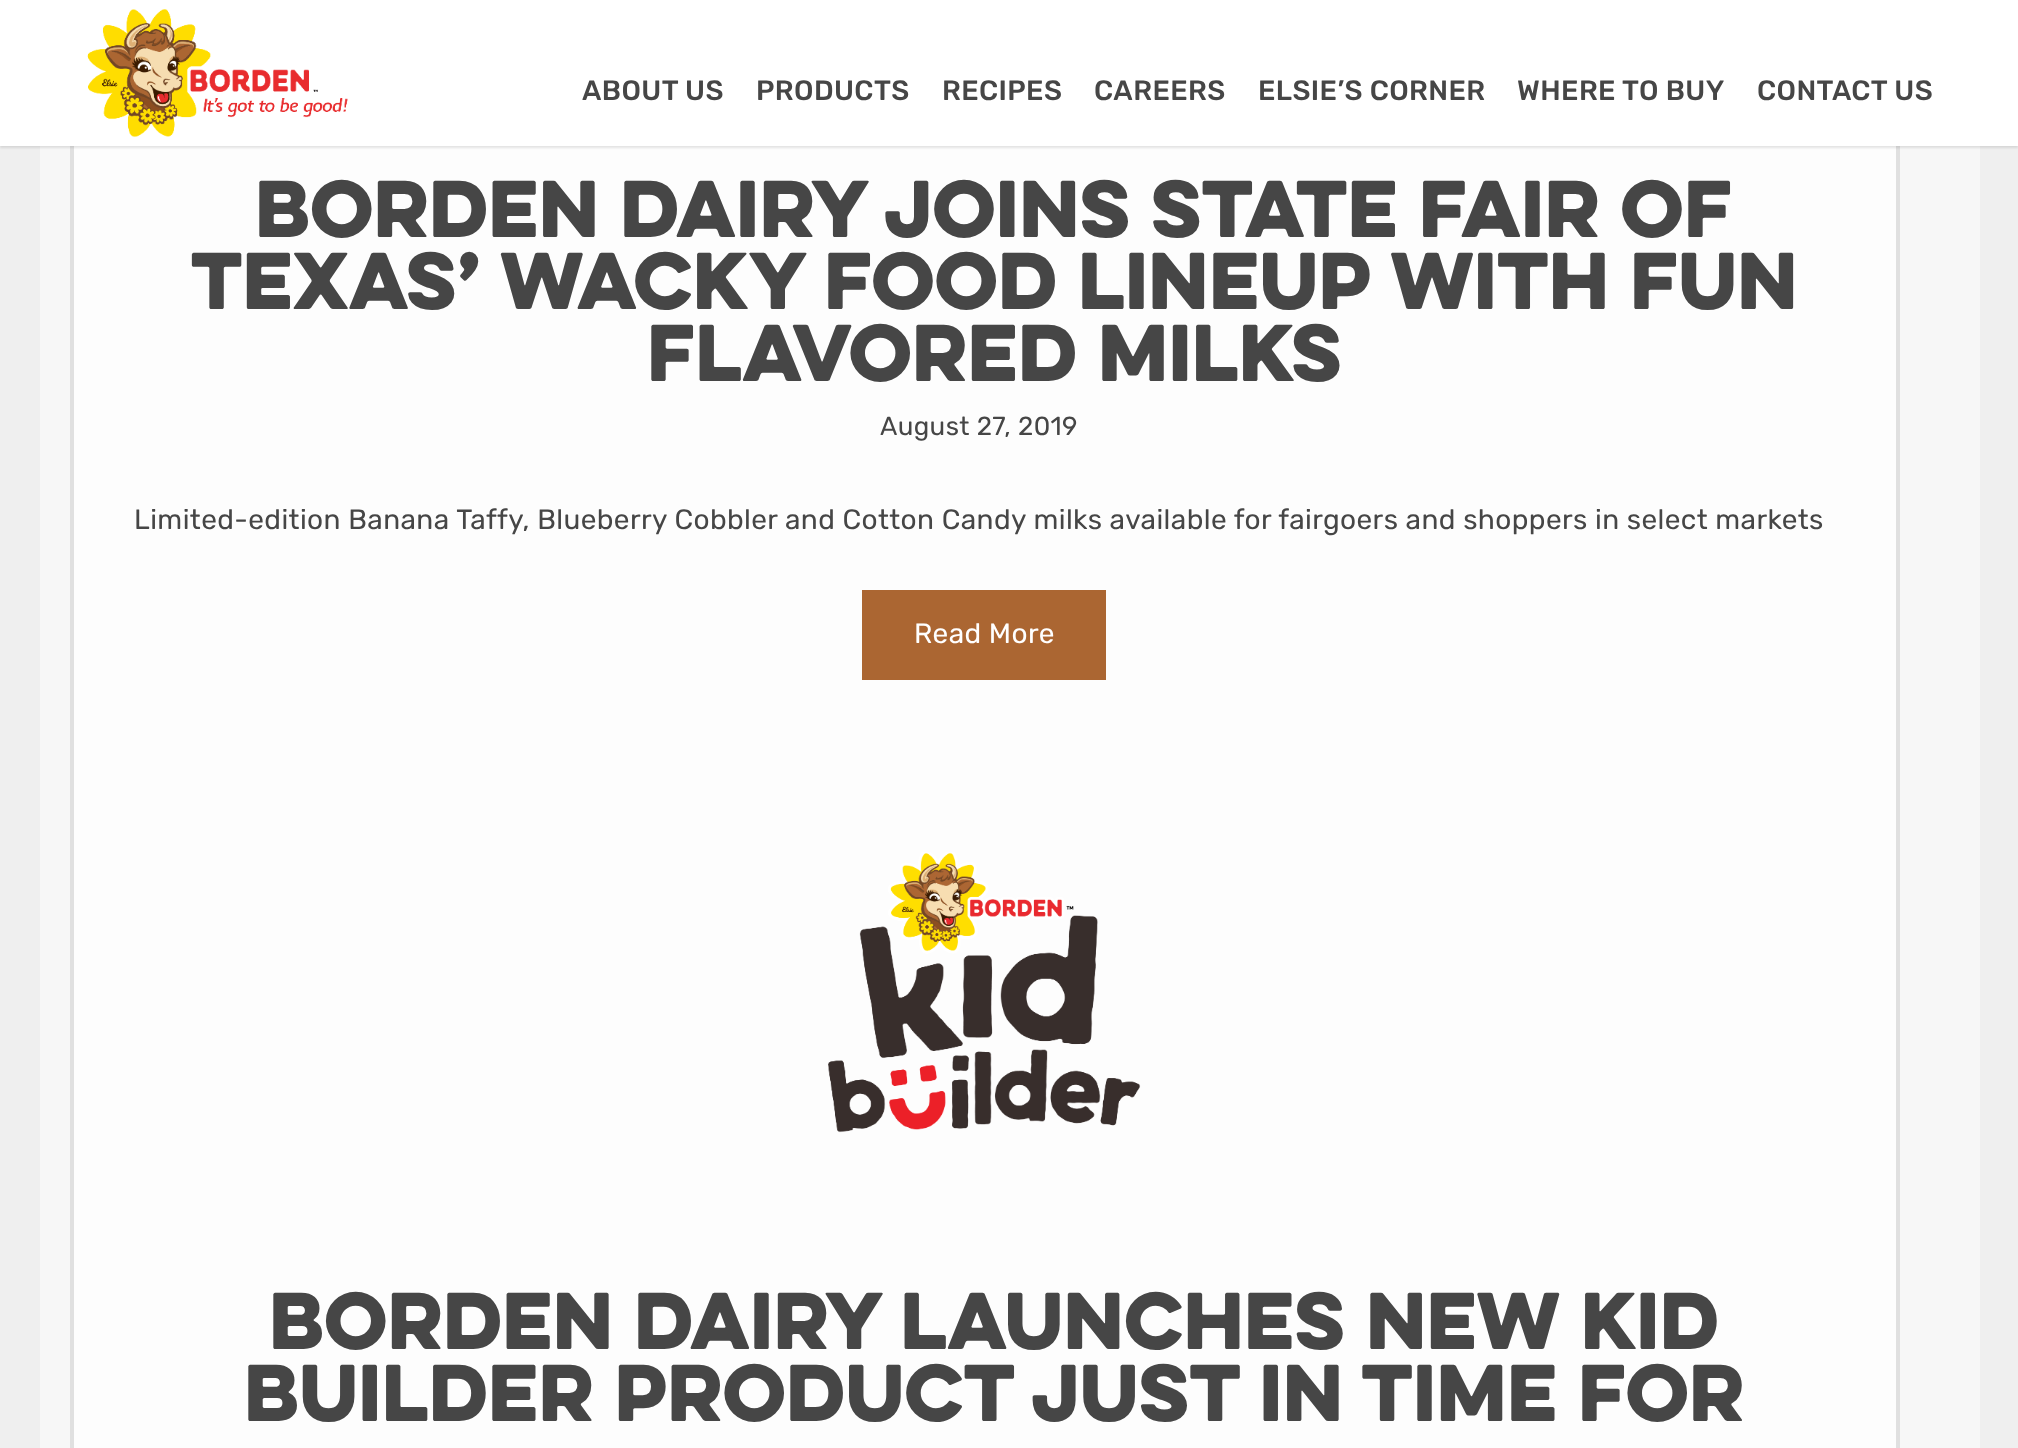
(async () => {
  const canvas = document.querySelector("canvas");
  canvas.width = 2018;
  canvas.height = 1448;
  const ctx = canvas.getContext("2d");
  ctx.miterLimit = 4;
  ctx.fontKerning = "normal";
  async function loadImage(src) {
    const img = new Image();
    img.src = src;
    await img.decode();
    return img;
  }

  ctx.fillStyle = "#efefef";
  ctx.fillRect(0, 0, 2018, 1448);
  ctx.fillStyle = "#f7f7f7";
  ctx.fillRect(40, 146, 1940, 1302);
  ctx.fillStyle = "#fdfdfd";
  ctx.fillRect(74, 146, 1822, 1302);
  ctx.strokeStyle = "#e0e0e0";
  ctx.lineWidth = 4;
  ctx.strokeRect(72, -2, 1826, 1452);
  ctx.fillStyle = "rgba(0, 0, 0, 0.1)";
  ctx.filter = "blur(1px)";
  ctx.beginPath();
  ctx.rect(0, 2, 2018, 146);
  ctx.fill();
  ctx.filter = "none";
  ctx.fillStyle = "#ffffff";
  ctx.fillRect(0, 0, 2018, 146);
  ctx.drawImage(await loadImage("img/1.png"), 87, 9, 261, 129);
  ctx.fillStyle = "#ab6632";
  ctx.fillRect(862, 590, 244, 90);
  ctx.drawImage(await loadImage("img/2.png"), 828, 852, 313, 281);
  ctx.letterSpacing = "0.4px";
  ctx.font = "500 28px Rubik";
  ctx.fillStyle = "#464646";
  for (const [text, x, y] of [
    ["ABOUT US", 582, 100],
    ["PRODUCTS", 756, 100],
    ["RECIPES", 942, 100],
    ["CAREERS", 1094, 100],
    ["ELSIE’S CORNER", 1258, 100],
    ["WHERE TO BUY", 1517, 100],
    ["CONTACT US", 1757, 100],
  ]) {
    ctx.fillText(text, x, y);
  }
  ctx.font = "900 72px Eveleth";
  for (const [text, x, y] of [
    ["Borden Dairy Joins State Fair of", 255, 237],
    ["Texas’ Wacky Food Lineup with Fun", 191, 309],
    ["Flavored Milks", 647, 381],
  ]) {
    ctx.fillText(text, x, y);
  }
  ctx.font = "26px Rubik";
  ctx.fillText("August 27, 2019", 880, 435);
  ctx.font = "28px Rubik";
  ctx.fillText("Limited-edition Banana Taffy, Blueberry Cobbler and Cotton Candy milks available for fairgoers and shoppers in select markets", 134, 529);
  ctx.fillStyle = "#ffffff";
  ctx.fillText("Read More", 914, 643);
  ctx.font = "900 72px Eveleth";
  ctx.fillStyle = "#464646";
  ctx.fillText("Borden Dairy Launches New Kid", 269, 1349);
  ctx.fillText("Builder Product Just in Time for", 244, 1421);
})();
